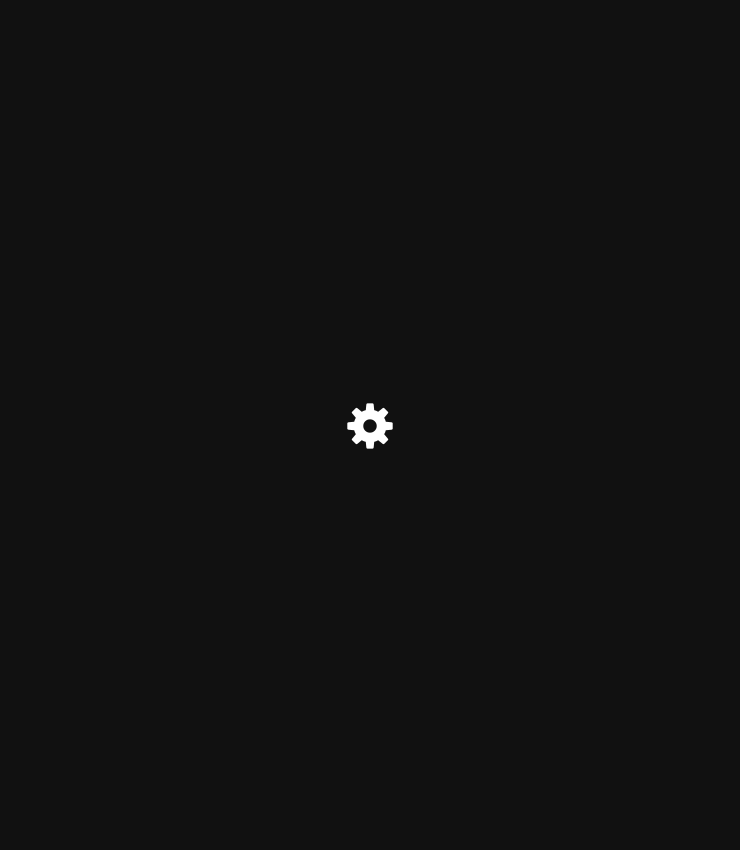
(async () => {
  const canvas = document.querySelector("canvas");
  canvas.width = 740;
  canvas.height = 850;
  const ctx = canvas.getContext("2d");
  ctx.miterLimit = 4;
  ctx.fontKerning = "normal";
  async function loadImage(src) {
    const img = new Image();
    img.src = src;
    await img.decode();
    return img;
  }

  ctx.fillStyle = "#111111";
  ctx.fillRect(0, 0, 740, 850);
  ctx.drawImage(await loadImage("img/1.png"), 347, 403, 46, 46);
})();
